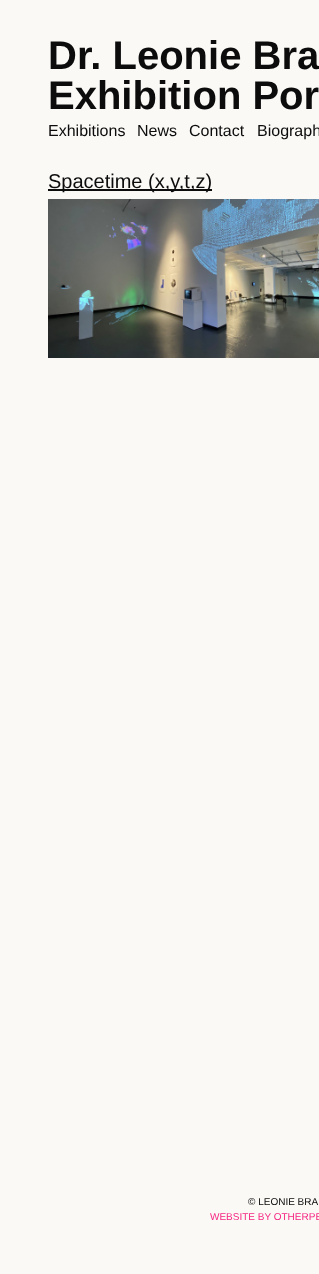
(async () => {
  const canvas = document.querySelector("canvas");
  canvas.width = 319;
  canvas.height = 1274;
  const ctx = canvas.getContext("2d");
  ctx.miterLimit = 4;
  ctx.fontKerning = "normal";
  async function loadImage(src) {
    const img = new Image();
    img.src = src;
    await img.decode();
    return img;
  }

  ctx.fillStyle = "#faf9f6";
  ctx.fillRect(0, 0, 319, 1274);
  ctx.fillStyle = "#0c0c0c";
  ctx.fillRect(48, 189, 164, 2);
  ctx.drawImage(await loadImage("img/1.png"), 48, 199, 271, 159);
  ctx.font = "bold 40px Liberation Sans";
  ctx.fillText("Dr. Leonie Bra", 48, 69);
  ctx.fillText("Exhibition Por", 48, 109);
  ctx.font = "16px Liberation Sans";
  for (const [text, x, y] of [
    ["Exhibitions", 48, 136],
    ["News", 137, 136],
    ["Contact", 189, 136],
    ["Biograph", 257, 136],
  ]) {
    ctx.fillText(text, x, y);
  }
  ctx.font = "20px Liberation Sans";
  ctx.fillText("Spacetime (x,y,t,z)", 48, 188);
  ctx.font = "10px Liberation Sans";
  ctx.fillText("© LEONIE BRA", 248, 1205);
  ctx.fillStyle = "#f62681";
  ctx.fillText("WEBSITE BY OTHERPE", 210, 1220);
})();
